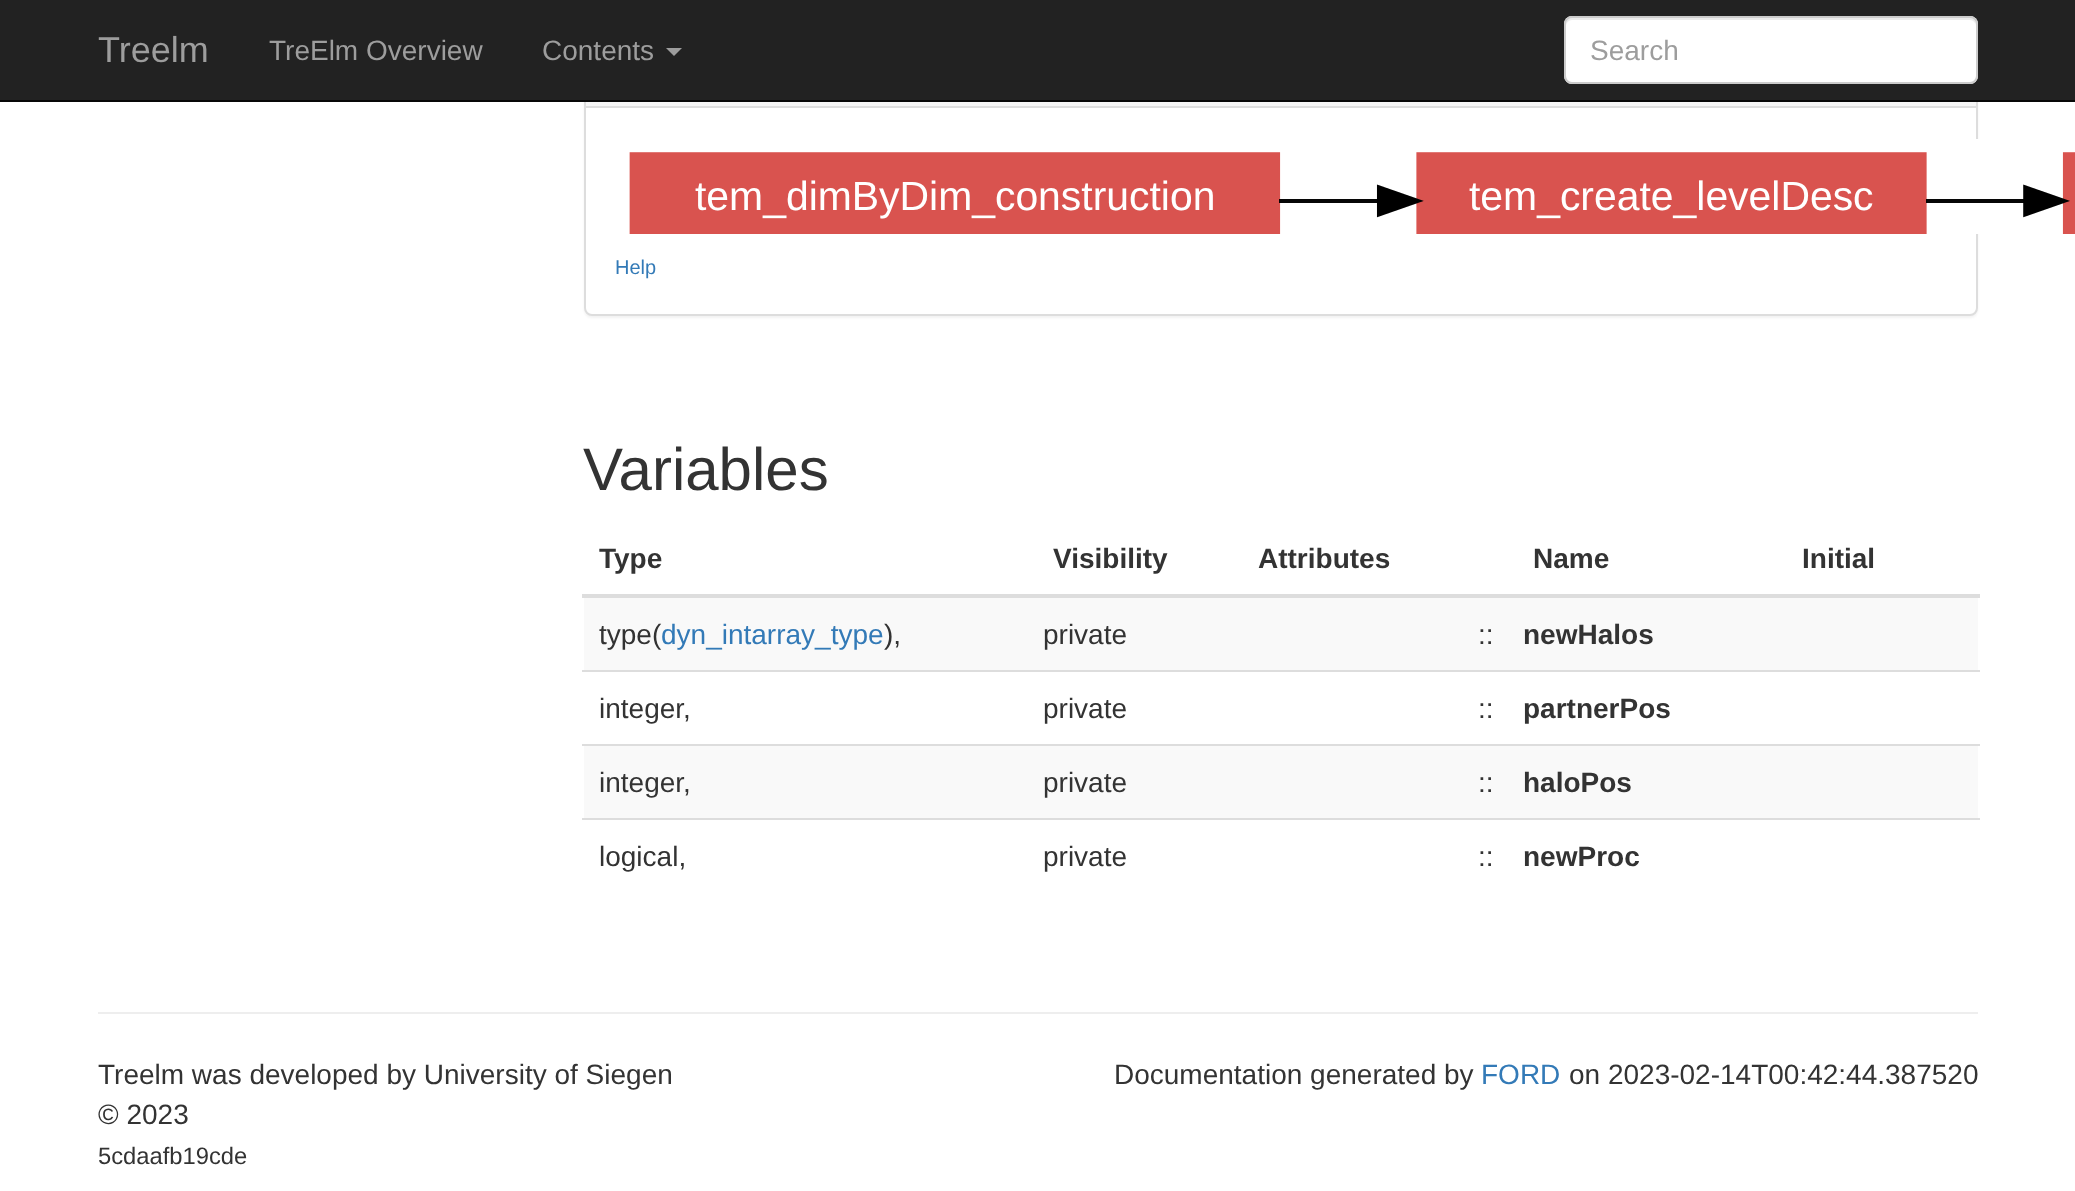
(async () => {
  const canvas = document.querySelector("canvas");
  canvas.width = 2075;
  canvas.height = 1191;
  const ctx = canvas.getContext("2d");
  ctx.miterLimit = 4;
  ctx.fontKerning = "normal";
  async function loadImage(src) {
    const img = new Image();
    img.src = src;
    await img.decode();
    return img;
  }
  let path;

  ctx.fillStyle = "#ffffff";
  ctx.fillRect(0, 0, 2075, 1191);
  ctx.fillStyle = "rgba(0, 0, 0, 0.05)";
  ctx.filter = "blur(1px)";
  ctx.beginPath();
  ctx.roundRect(584, 30, 1394, 288, 8);
  ctx.fill();
  ctx.filter = "none";
  ctx.fillStyle = "#ffffff";
  ctx.beginPath();
  ctx.roundRect(585, 29, 1392, 286, 7);
  ctx.fill();
  ctx.strokeStyle = "#dddddd";
  ctx.lineWidth = 2;
  ctx.stroke();
  ctx.fillStyle = "#222222";
  ctx.fillRect(0, 0, 2075, 100);
  ctx.fillStyle = "#080808";
  ctx.fillRect(0, 100, 2075, 2);
  ctx.fillStyle = "#9d9d9d";
  path = new Path2D("M666 48H682L674 56Z");
  ctx.fill(path);
  ctx.fillStyle = "#ffffff";
  ctx.beginPath();
  ctx.roundRect(1564, 16, 414, 68, 8);
  ctx.fill();
  ctx.fillStyle = "#ececec";
  path = new Path2D("M1572 20H1970C1973 20 1976 23 1976 26C1976 22 1975 18 1970 18H1572C1567 18 1566 22 1566 26C1566 23 1569 20 1572 20Z");
  ctx.fill(path);
  ctx.beginPath();
  ctx.roundRect(1565, 17, 412, 66, 7);
  ctx.strokeStyle = "#cccccc";
  ctx.stroke();
  ctx.fillStyle = "#f5f5f5";
  ctx.fillRect(586, 102, 1390, 4);
  ctx.fillStyle = "#dddddd";
  ctx.fillRect(586, 106, 1390, 2);
  ctx.drawImage(await loadImage("img/1.png"), 629, 139, 1446, 95);
  for (const [x, y, w, h, color] of [
    [582, 594, 1398, 4, "#dddddd"],
    [584, 598, 1394, 72, "#f9f9f9"],
    [582, 670, 1398, 2, "#dddddd"],
    [584, 746, 1394, 72, "#f9f9f9"],
    [582, 744, 1398, 2, "#dddddd"],
    [582, 818, 1398, 2, "#dddddd"],
    [98, 1012, 1880, 2, "#eeeeee"],
  ]) {
    ctx.fillStyle = color;
    ctx.fillRect(x, y, w, h);
  }
  ctx.font = "36px Liberation Sans";
  ctx.fillStyle = "#9d9d9d";
  ctx.fillText("Treelm", 98, 62);
  ctx.font = "28px Liberation Sans";
  for (const [text, x, y] of [
    ["TreElm Overview", 269, 60],
    ["Contents", 542, 60],
    ["Search", 1590, 60],
  ]) {
    ctx.fillText(text, x, y);
  }
  ctx.font = "40.9px Liberation Sans";
  ctx.fillStyle = "#ffffff";
  ctx.fillText("tem_dimByDim_construction", 695, 210);
  ctx.fillText("tem_create_levelDesc", 1469, 210);
  ctx.font = "20px Liberation Sans";
  ctx.fillStyle = "#337ab7";
  ctx.fillText("Help", 615, 274);
  ctx.font = "60px Liberation Sans";
  ctx.fillStyle = "#333333";
  ctx.fillText("Variables", 583, 490);
  ctx.font = "bold 28px Liberation Sans";
  for (const [text, x, y] of [
    ["Type", 599, 568],
    ["Visibility", 1053, 568],
    ["Attributes", 1258, 568],
    ["Name", 1533, 568],
    ["Initial", 1802, 568],
  ]) {
    ctx.fillText(text, x, y);
  }
  ctx.font = "28px Liberation Sans";
  ctx.fillText("type(", 599, 644);
  ctx.fillStyle = "#337ab7";
  ctx.fillText("dyn_intarray_type", 661, 644);
  ctx.fillStyle = "#333333";
  for (const [text, x, y] of [
    ["),", 884, 644],
    ["private", 1043, 644],
    ["::", 1478, 644],
  ]) {
    ctx.fillText(text, x, y);
  }
  ctx.font = "bold 28px Liberation Sans";
  ctx.fillText("newHalos", 1523, 644);
  ctx.font = "28px Liberation Sans";
  for (const [text, x, y] of [
    ["integer,", 599, 718],
    ["private", 1043, 718],
    ["::", 1478, 718],
  ]) {
    ctx.fillText(text, x, y);
  }
  ctx.font = "bold 28px Liberation Sans";
  ctx.fillText("partnerPos", 1523, 718);
  ctx.font = "28px Liberation Sans";
  for (const [text, x, y] of [
    ["integer,", 599, 792],
    ["private", 1043, 792],
    ["::", 1478, 792],
  ]) {
    ctx.fillText(text, x, y);
  }
  ctx.font = "bold 28px Liberation Sans";
  ctx.fillText("haloPos", 1523, 792);
  ctx.font = "28px Liberation Sans";
  for (const [text, x, y] of [
    ["logical,", 599, 866],
    ["private", 1043, 866],
    ["::", 1478, 866],
  ]) {
    ctx.fillText(text, x, y);
  }
  ctx.font = "bold 28px Liberation Sans";
  ctx.fillText("newProc", 1523, 866);
  ctx.font = "28px Liberation Sans";
  ctx.fillText("Treelm was developed by University of Siegen", 98, 1084);
  ctx.fillText("© 2023", 98, 1124);
  ctx.font = "23.75px Liberation Sans";
  ctx.fillText("5cdaafb19cde", 98, 1164);
  ctx.font = "28px Liberation Sans";
  ctx.fillText("Documentation generated by", 1114, 1084);
  ctx.fillStyle = "#337ab7";
  ctx.fillText("FORD", 1481, 1084);
  ctx.fillStyle = "#333333";
  ctx.fillText("on 2023-02-14T00:42:44.387520", 1569, 1084);
})();
